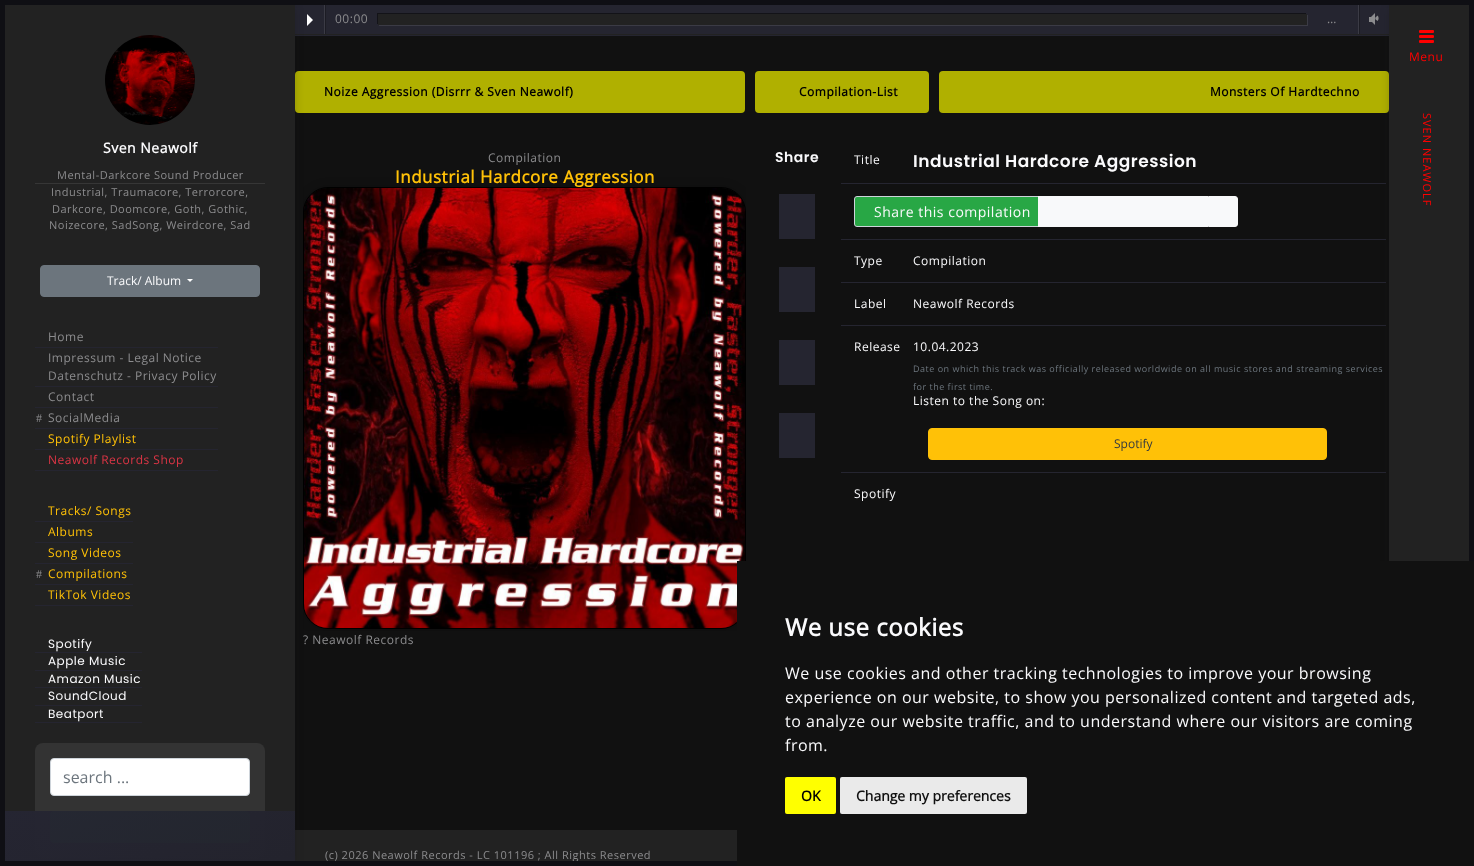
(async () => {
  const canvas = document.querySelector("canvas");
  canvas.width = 1474;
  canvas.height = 866;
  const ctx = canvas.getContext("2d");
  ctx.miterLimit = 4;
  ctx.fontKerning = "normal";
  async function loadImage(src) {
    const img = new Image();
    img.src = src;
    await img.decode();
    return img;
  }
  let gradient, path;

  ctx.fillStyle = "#0f0f14";
  ctx.fillRect(0, 0, 1474, 866);
  for (const [x, y, w, h, color] of [
    [295, 830, 442, 31, "#222222"],
    [295, 5, 1094, 31, "#252530"],
    [295, 34, 1094, 1, "#222222"],
    [324, 5, 1, 29, "#3b3b45"],
  ]) {
    ctx.fillStyle = color;
    ctx.fillRect(x, y, w, h);
  }
  ctx.fillStyle = "#ffffff";
  path = new Path2D("M307 26V14L313 20Z");
  ctx.fill(path);
  ctx.fillStyle = "#1c1c24";
  ctx.fillRect(325, 5, 1, 29);
  ctx.fillStyle = "#3b3b45";
  path = new Path2D("M379 25V26H1308V15H1307V25Z");
  ctx.fill(path);
  ctx.fillStyle = "#131318";
  path = new Path2D("M377 13V24H378V14H1306V13Z");
  ctx.fill(path);
  for (const [x, y, w, h, color] of [
    [378, 14, 929, 11, "#222222"],
    [1358, 5, 1, 29, "#3b3b45"],
    [1359, 5, 1, 29, "#1c1c24"],
    [1369, 17, 3, 5, "#8c8c8e"],
  ]) {
    ctx.fillStyle = color;
    ctx.fillRect(x, y, w, h);
  }
  path = new Path2D("M1377.5 15.5C1379 17 1379 19.5 1377.5 21L1374.5 18.5ZM1375 18C1375.5 18 1375.5 18.5 1375 19L1374.5 18.5Z");
  ctx.fill(path, "evenodd");
  path = new Path2D("M1375 13V25L1369 19Z");
  ctx.fill(path);
  ctx.fillStyle = "#111111";
  ctx.fillRect(295, 36, 1094, 794);
  ctx.fillStyle = "#b0b000";
  ctx.beginPath();
  ctx.roundRect(295, 71, 450, 42, 4);
  ctx.fill();
  ctx.beginPath();
  ctx.roundRect(755, 71, 174, 42, 4);
  ctx.fill();
  ctx.beginPath();
  ctx.roundRect(939, 71, 450, 42, 4);
  ctx.fill();
  ctx.save();
  ctx.beginPath();
  ctx.rect(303, 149, 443, 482);
  ctx.clip();
  ctx.fillStyle = "rgba(0, 0, 0, 0.2)";
  ctx.filter = "blur(5px)";
  ctx.beginPath();
  ctx.roundRect(303, 187, 443, 442, 25);
  ctx.fill();
  ctx.filter = "none";
  ctx.restore();
  for (const [x, y, w, h, color] of [
    [779, 194, 36, 45, "#252530"],
    [779, 267, 36, 45, "#252530"],
    [779, 340, 36, 45, "#252530"],
    [779, 413, 36, 45, "#252530"],
    [841, 183, 545, 1, "#252530"],
    [841, 239, 545, 1, "#252530"],
  ]) {
    ctx.fillStyle = color;
    ctx.fillRect(x, y, w, h);
  }
  ctx.fillStyle = "#28a745";
  ctx.beginPath();
  ctx.roundRect(854.5, 196.5, 185, 30, [2.5, 0, 0, 2.5]);
  ctx.fill();
  ctx.strokeStyle = "#ced4da";
  ctx.stroke();
  ctx.fillStyle = "#f8f9fa";
  ctx.fillRect(1038, 196, 170, 31);
  ctx.beginPath();
  ctx.roundRect(1208.5, 196.5, 29, 30, [0, 2.5, 2.5, 0]);
  ctx.fill();
  ctx.strokeStyle = "#f8f9fa";
  ctx.stroke();
  for (const [x, y, w, h, color] of [
    [841, 282, 545, 1, "#252530"],
    [841, 325, 545, 1, "#252530"],
    [841, 472, 545, 1, "#252530"],
  ]) {
    ctx.fillStyle = color;
    ctx.fillRect(x, y, w, h);
  }
  ctx.fillStyle = "#ffc107";
  ctx.beginPath();
  ctx.roundRect(928.5, 428.5, 398, 31, 3.5);
  ctx.fill();
  ctx.strokeStyle = "#ffc107";
  ctx.stroke();
  ctx.save();
  ctx.beginPath();
  ctx.rect(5, 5, 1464, 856);
  ctx.clip();
  ctx.fillStyle = "rgba(15, 15, 20, 0.2)";
  ctx.filter = "blur(4px)";
  ctx.beginPath();
  ctx.rect(1389, 8, 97, 836);
  ctx.fill();
  ctx.filter = "none";
  ctx.restore();
  ctx.fillStyle = "#222222";
  ctx.fillRect(1389, 5, 80, 556);
  ctx.fillStyle = "#ff0000";
  ctx.beginPath();
  ctx.roundRect(1419, 35, 15, 3, 1);
  ctx.fill();
  ctx.beginPath();
  ctx.roundRect(1419, 30, 15, 3, 1);
  ctx.fill();
  ctx.beginPath();
  ctx.roundRect(1419, 40, 15, 3, 1);
  ctx.fill();
  ctx.letterSpacing = "0.5px";
  ctx.font = "12px Open Sans";
  ctx.fillStyle = "#8c8c8e";
  ctx.fillText("00:00", 335, 23);
  ctx.fillText("…", 1327, 23);
  ctx.font = "bold 12px Open Sans";
  ctx.fillStyle = "#000000";
  for (const [text, x, y] of [
    ["Noize Aggression (Disrrr & Sven Neawolf)", 324, 96],
    ["Compilation-List", 799, 96],
    ["Monsters Of Hardtechno", 1210, 96],
  ]) {
    ctx.fillText(text, x, y);
  }
  ctx.font = "12px Open Sans";
  ctx.fillStyle = "#8c8c8e";
  ctx.fillText("Compilation", 488, 162);
  ctx.font = "bold 17px Open Sans";
  ctx.fillStyle = "#ffc107";
  ctx.fillText("Industrial Hardcore Aggression", 395, 183);
  ctx.beginPath();
  ctx.roundRect(303.5, 187.5, 442, 441, 24.5);
  ctx.strokeStyle = "#000000";
  ctx.stroke();
  ctx.drawImage(await loadImage("img/2.png"), 304, 188, 441, 440);
  ctx.save();
  ctx.beginPath();
  ctx.rect(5, 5, 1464, 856);
  ctx.clip();
  ctx.fillStyle = "rgba(15, 15, 20, 0.2)";
  ctx.filter = "blur(4px)";
  ctx.beginPath();
  ctx.rect(5, 8, 290, 856);
  ctx.fill();
  ctx.filter = "none";
  ctx.restore();
  ctx.fillStyle = "#222222";
  ctx.fillRect(5, 5, 290, 856);
  ctx.fillStyle = "#363636";
  ctx.fillRect(35, 183, 230, 1);
  ctx.drawImage(await loadImage("img/1.png"), 105, 35, 90, 90);
  ctx.font = "11px Open Sans";
  ctx.fillStyle = "#8c8c8e";
  for (const [text, x, y] of [
    ["Noizecore, SadSong, Weirdcore, Sad", 49, 229],
    ["Darkcore, Doomcore, Goth, Gothic,", 52, 213],
    ["Industrial, Traumacore, Terrorcore,", 51, 196],
    ["Mental-Darkcore Sound Producer", 57, 179],
  ]) {
    ctx.fillText(text, x, y);
  }
  ctx.font = "bold 14px Open Sans";
  ctx.fillStyle = "#fafafc";
  ctx.fillText("Sven Neawolf", 103, 153);
  ctx.fillStyle = "#333333";
  ctx.beginPath();
  ctx.roundRect(35, 743, 230, 115, 8);
  ctx.fill();
  ctx.fillStyle = "#28a745";
  ctx.beginPath();
  ctx.roundRect(50.5, 811.5, 199, 31, 3.5);
  ctx.fill();
  ctx.strokeStyle = "#28a745";
  ctx.stroke();
  gradient = ctx.createLinearGradient(123, 766, 177, 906);
  gradient.addColorStop(0, "rgba(37, 37, 50, 0.98)");
  gradient.addColorStop(1, "rgba(35, 35, 45, 0.98)");
  ctx.fillStyle = gradient;
  ctx.fillRect(5, 811, 290, 50);
  ctx.fillStyle = "#6c757d";
  ctx.beginPath();
  ctx.roundRect(40.5, 265.5, 219, 31, 3.5);
  ctx.fill();
  ctx.strokeStyle = "#6c757d";
  ctx.stroke();
  ctx.fillStyle = "#ffffff";
  path = new Path2D("M187 279H193L190 282Z");
  ctx.fill(path);
  ctx.letterSpacing = "0px";
  ctx.font = "12px Open Sans";
  ctx.fillStyle = "#fafafc";
  ctx.fillText("Track/ Album", 107, 285);
  ctx.fillStyle = "#ffffff";
  ctx.beginPath();
  ctx.roundRect(50.5, 758.5, 199, 37, 3.5);
  ctx.fill();
  ctx.strokeStyle = "#ced4da";
  ctx.stroke();
  ctx.font = "16px Open Sans";
  ctx.fillStyle = "#6c757d";
  ctx.fillText("search ...", 63, 783);
  ctx.letterSpacing = "0.5px";
  ctx.font = "12px Poppins";
  ctx.fillStyle = "#fafafc";
  for (const [text, x, y] of [
    ["Beatport", 48, 718],
    ["SoundCloud", 48, 700],
    ["Amazon Music", 48, 683],
    ["Apple Music", 48, 665],
    ["Spotify", 48, 648],
  ]) {
    ctx.fillText(text, x, y);
  }
  ctx.font = "12px Open Sans";
  ctx.fillStyle = "#ffc107";
  ctx.fillText("TikTok Videos", 48, 599);
  ctx.fillText("Compilations", 48, 578);
  ctx.font = "12px Liberation Serif";
  ctx.fillStyle = "#8c8c8e";
  ctx.fillText("#", 36, 578);
  ctx.font = "12px Open Sans";
  ctx.fillStyle = "#ffc107";
  for (const [text, x, y] of [
    ["Song Videos", 48, 557],
    ["Albums", 48, 536],
    ["Tracks/ Songs", 48, 515],
  ]) {
    ctx.fillText(text, x, y);
  }
  ctx.fillStyle = "#dc3545";
  ctx.fillText("Neawolf Records Shop", 48, 464);
  ctx.fillStyle = "#ffc107";
  ctx.fillText("Spotify Playlist", 48, 443);
  ctx.fillStyle = "#8c8c8e";
  ctx.fillText("SocialMedia", 48, 422);
  ctx.font = "12px Liberation Serif";
  ctx.fillText("#", 36, 422);
  ctx.font = "12px Open Sans";
  for (const [text, x, y] of [
    ["Contact", 48, 401],
    ["Datenschutz - Privacy Policy", 48, 380],
    ["Impressum - Legal Notice", 48, 362],
    ["Home", 48, 341],
  ]) {
    ctx.fillText(text, x, y);
  }
  for (const [x, y, w, h, color] of [
    [35, 652, 107, 1, "#252530"],
    [35, 670, 107, 1, "#252530"],
    [35, 687, 107, 1, "#252530"],
    [35, 705, 107, 1, "#252530"],
    [35, 722, 107, 1, "#252530"],
    [35, 521, 98, 1, "#252530"],
    [35, 542, 98, 1, "#252530"],
    [35, 563, 98, 1, "#252530"],
    [35, 584, 98, 1, "#252530"],
    [35, 605, 98, 1, "#252530"],
    [35, 347, 183, 1, "#252530"],
    [35, 386, 183, 1, "#252530"],
    [35, 407, 183, 1, "#252530"],
    [35, 428, 183, 1, "#252530"],
    [35, 449, 183, 1, "#252530"],
    [35, 470, 183, 1, "#252530"],
  ]) {
    ctx.fillStyle = color;
    ctx.fillRect(x, y, w, h);
  }
  ctx.fillStyle = "#8c8c8e";
  ctx.fillText("? Neawolf Records", 303, 644);
  ctx.font = "600 14px Poppins";
  ctx.fillStyle = "#fafafc";
  ctx.fillText("Share", 775, 162);
  ctx.font = "12px Open Sans";
  ctx.fillText("Title", 854, 164);
  ctx.font = "600 17px Poppins";
  ctx.fillText("Industrial Hardcore Aggression", 913, 167);
  ctx.font = "14px Open Sans";
  ctx.fillText("Share this compilation", 874, 217);
  ctx.font = "12px Open Sans";
  for (const [text, x, y] of [
    ["Type", 854, 265],
    ["Compilation", 913, 265],
    ["Label", 854, 308],
    ["Neawolf Records", 913, 308],
    ["Release", 854, 351],
    ["10.04.2023", 913, 351],
  ]) {
    ctx.fillText(text, x, y);
  }
  ctx.font = "9px Open Sans";
  ctx.fillStyle = "#6c757d";
  ctx.fillText("Date on which this track was officially released worldwide on all music stores and streaming services", 913, 372);
  ctx.fillText("for the first time.", 913, 390);
  ctx.font = "12px Open Sans";
  ctx.fillStyle = "#fafafc";
  ctx.fillText("Listen to the Song on:", 913, 405);
  ctx.letterSpacing = "0px";
  ctx.fillStyle = "#343a40";
  ctx.fillText("Spotify", 1114, 448);
  ctx.letterSpacing = "0.5px";
  ctx.fillStyle = "#fafafc";
  ctx.fillText("Spotify", 854, 498);
  ctx.save();
  ctx.beginPath();
  ctx.rect(295, 830, 1094, 31);
  ctx.clip();
  ctx.font = "11px Open Sans";
  ctx.fillStyle = "#8c8c8e";
  ctx.fillText("(c) 2026 Neawolf Records - LC 101196 ; All Rights Reserved", 325, 859);
  ctx.restore();
  ctx.fillStyle = "#ff0000";
  ctx.fillText("Menu", 1409, 61);
  ctx.letterSpacing = "1px";
  ctx.font = "11px Open Sans";
  ctx.save();
  ctx.translate(1423, 113);
  ctx.rotate(90 * Math.PI / 180);
  ctx.fillText("SVEN", 0, 0);
  ctx.restore();
  ctx.save();
  ctx.translate(1423, 148);
  ctx.rotate(90 * Math.PI / 180);
  ctx.fillText("NEAWOLF", 0, 0);
  ctx.restore();
  ctx.fillStyle = "#111111";
  ctx.fillRect(737, 561, 737, 305);
  ctx.letterSpacing = "0.5px";
  ctx.font = "bold 24px Open Sans";
  ctx.fillStyle = "#fafafc";
  ctx.fillText("We use cookies", 785, 636);
  ctx.font = "16px Open Sans";
  for (const [text, x, y] of [
    ["We use cookies and other tracking technologies to improve your browsing", 785, 679],
    ["experience on our website, to show you personalized content and targeted ads,", 785, 703],
    ["to analyze our website traffic, and to understand where our visitors are coming", 785, 727],
    ["from.", 785, 751],
  ]) {
    ctx.fillText(text, x, y);
  }
  ctx.fillStyle = "#ffff00";
  ctx.beginPath();
  ctx.roundRect(785, 777, 51, 37, 2);
  ctx.fill();
  ctx.letterSpacing = "0px";
  ctx.font = "bold 14px Open Sans";
  ctx.fillStyle = "#000000";
  ctx.fillText("OK", 801, 801);
  ctx.fillStyle = "#eaeaea";
  ctx.beginPath();
  ctx.roundRect(840, 777, 187, 37, 2);
  ctx.fill();
  ctx.fillStyle = "#111111";
  ctx.fillText("Change my preferences", 856, 801);
})();
